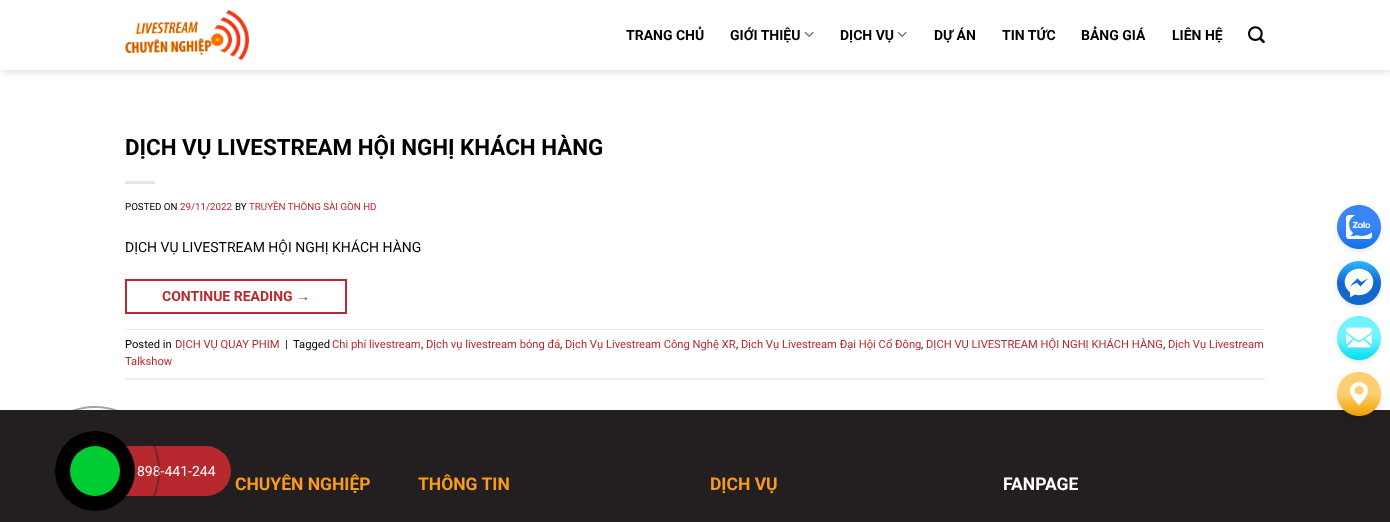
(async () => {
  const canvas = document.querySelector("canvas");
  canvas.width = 1390;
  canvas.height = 522;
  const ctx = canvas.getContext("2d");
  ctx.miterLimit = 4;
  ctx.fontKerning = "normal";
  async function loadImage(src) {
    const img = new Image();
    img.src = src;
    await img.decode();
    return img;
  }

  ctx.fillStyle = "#ffffff";
  ctx.fillRect(0, 0, 1390, 522);
  ctx.save();
  ctx.beginPath();
  ctx.rect(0, 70, 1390, 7);
  ctx.clip();
  ctx.fillStyle = "rgba(0, 0, 0, 0.15)";
  ctx.filter = "blur(5px)";
  ctx.beginPath();
  ctx.rect(1, 1, 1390, 70);
  ctx.fill();
  ctx.filter = "none";
  ctx.restore();
  ctx.drawImage(await loadImage("img/1.png"), 125, 10, 124, 50);
  ctx.drawImage(await loadImage("img/2.png"), 804, 31, 10, 6);
  ctx.drawImage(await loadImage("img/2.png"), 897, 31, 10, 6);
  ctx.drawImage(await loadImage("img/3.png"), 1248, 26, 17, 17);
  ctx.fillStyle = "#e6e6e6";
  ctx.fillRect(125, 181, 30, 3);
  ctx.strokeStyle = "#b8292f";
  ctx.lineWidth = 2;
  ctx.strokeRect(126, 280, 220, 33);
  for (const [x, y, w, h, color] of [
    [125, 329, 1140, 1, "#ececec"],
    [125, 378, 1140, 2, "#ececec"],
    [0, 410, 1390, 112, "#231f20"],
  ]) {
    ctx.fillStyle = color;
    ctx.fillRect(x, y, w, h);
  }
  ctx.fillStyle = "rgba(0, 0, 0, 0.11)";
  ctx.filter = "blur(2.5px)";
  ctx.beginPath();
  ctx.roundRect(1337, 207, 44, 44, 22);
  ctx.fill();
  ctx.filter = "none";
  ctx.drawImage(await loadImage("img/4.png"), 1337, 205, 44, 44);
  ctx.filter = "blur(2.5px)";
  ctx.beginPath();
  ctx.roundRect(1337, 263, 44, 44, 22);
  ctx.fill();
  ctx.filter = "none";
  ctx.drawImage(await loadImage("img/5.png"), 1337, 261, 44, 44);
  ctx.filter = "blur(2.5px)";
  ctx.beginPath();
  ctx.roundRect(1337, 318, 44, 44, 22);
  ctx.fill();
  ctx.filter = "none";
  ctx.drawImage(await loadImage("img/6.png"), 1337, 316, 44, 44);
  ctx.filter = "blur(2.5px)";
  ctx.beginPath();
  ctx.roundRect(1337, 374, 44, 44, 22);
  ctx.fill();
  ctx.filter = "none";
  ctx.drawImage(await loadImage("img/7.png"), 1337, 372, 44, 44);
  ctx.fillStyle = "#b8292f";
  ctx.beginPath();
  ctx.roundRect(70, 446, 161, 50, 25);
  ctx.fill();
  ctx.font = "bold 14px Roboto";
  ctx.fillStyle = "#000000";
  for (const [text, x, y] of [
    ["TRANG CHỦ", 626, 40],
    ["GIỚI THIỆU", 730, 40],
    ["DỊCH VỤ", 840, 40],
    ["DỰ ÁN", 934, 40],
    ["TIN TỨC", 1002, 40],
    ["BẢNG GIÁ", 1081, 40],
    ["LIÊN HỆ", 1172, 40],
  ]) {
    ctx.fillText(text, x, y);
  }
  ctx.font = "bold 22.4px Roboto";
  ctx.fillText("DỊCH VỤ LIVESTREAM HỘI NGHỊ KHÁCH HÀNG", 125, 155);
  ctx.font = "9.75px Roboto";
  ctx.fillText("POSTED ON", 125, 210);
  ctx.fillStyle = "#b8292f";
  ctx.fillText("29/11/2022", 180, 210);
  ctx.fillStyle = "#000000";
  ctx.fillText("BY", 235, 210);
  ctx.fillStyle = "#b8292f";
  ctx.fillText("TRUYỀN THÔNG SÀI GÒN HD", 249, 210);
  ctx.font = "14px Roboto";
  ctx.fillStyle = "#000000";
  ctx.fillText("DỊCH VỤ LIVESTREAM HỘI NGHỊ KHÁCH HÀNG", 125, 252);
  ctx.font = "bold 14px Roboto";
  ctx.fillStyle = "#b8292f";
  ctx.fillText("CONTINUE READING", 162, 301);
  ctx.font = "bold 14px Liberation Sans";
  ctx.fillText("→", 296, 301);
  ctx.font = "11.2px Roboto";
  ctx.fillStyle = "#000000";
  ctx.fillText("Posted in", 125, 348);
  ctx.fillStyle = "#b8292f";
  ctx.fillText("DỊCH VỤ QUAY PHIM", 175, 348);
  ctx.fillStyle = "#000000";
  ctx.fillText("|", 285, 348);
  ctx.fillText("Tagged", 293, 348);
  ctx.fillStyle = "#b8292f";
  ctx.fillText("Chi phí livestream", 332, 348);
  ctx.fillStyle = "#000000";
  ctx.fillText(",", 421, 348);
  ctx.fillStyle = "#b8292f";
  ctx.fillText("Dịch vụ livestream bóng đá", 426, 348);
  ctx.fillStyle = "#000000";
  ctx.fillText(",", 560, 348);
  ctx.fillStyle = "#b8292f";
  ctx.fillText("Dịch Vụ Livestream Công Nghệ XR", 565, 348);
  ctx.fillStyle = "#000000";
  ctx.fillText(",", 736, 348);
  ctx.fillStyle = "#b8292f";
  ctx.fillText("Dịch Vụ Livestream Đại Hội Cổ Đông", 741, 348);
  ctx.fillStyle = "#000000";
  ctx.fillText(",", 921, 348);
  ctx.fillStyle = "#b8292f";
  ctx.fillText("DỊCH VỤ LIVESTREAM HỘI NGHỊ KHÁCH HÀNG", 926, 348);
  ctx.fillStyle = "#000000";
  ctx.fillText(",", 1163, 348);
  ctx.fillStyle = "#b8292f";
  ctx.fillText("Dịch Vụ Livestream", 1168, 348);
  ctx.fillText("Talkshow", 125, 365);
  ctx.font = "bold 17.5px Roboto";
  ctx.fillStyle = "#f99b1c";
  for (const [text, x, y] of [
    ["CHUYÊN NGHIỆP", 235, 490],
    ["THÔNG TIN", 418, 490],
    ["DỊCH VỤ", 710, 490],
  ]) {
    ctx.fillText(text, x, y);
  }
  ctx.fillStyle = "#ffffff";
  ctx.fillText("FANPAGE", 1003, 490);
  ctx.font = "14px Roboto";
  ctx.fillText("898-441-244", 137, 476);
  ctx.beginPath();
  ctx.arc(95, 471, 64, 0, Math.PI * 2);
  ctx.strokeStyle = "rgba(30, 30, 30, 0.4)";
  ctx.stroke();
  ctx.fillStyle = "#000000";
  ctx.beginPath();
  ctx.arc(95, 471, 40, 0, Math.PI * 2);
  ctx.fill();
  ctx.fillStyle = "#00cc33";
  ctx.beginPath();
  ctx.arc(95, 471, 25, 0, Math.PI * 2);
  ctx.fill();
})();
